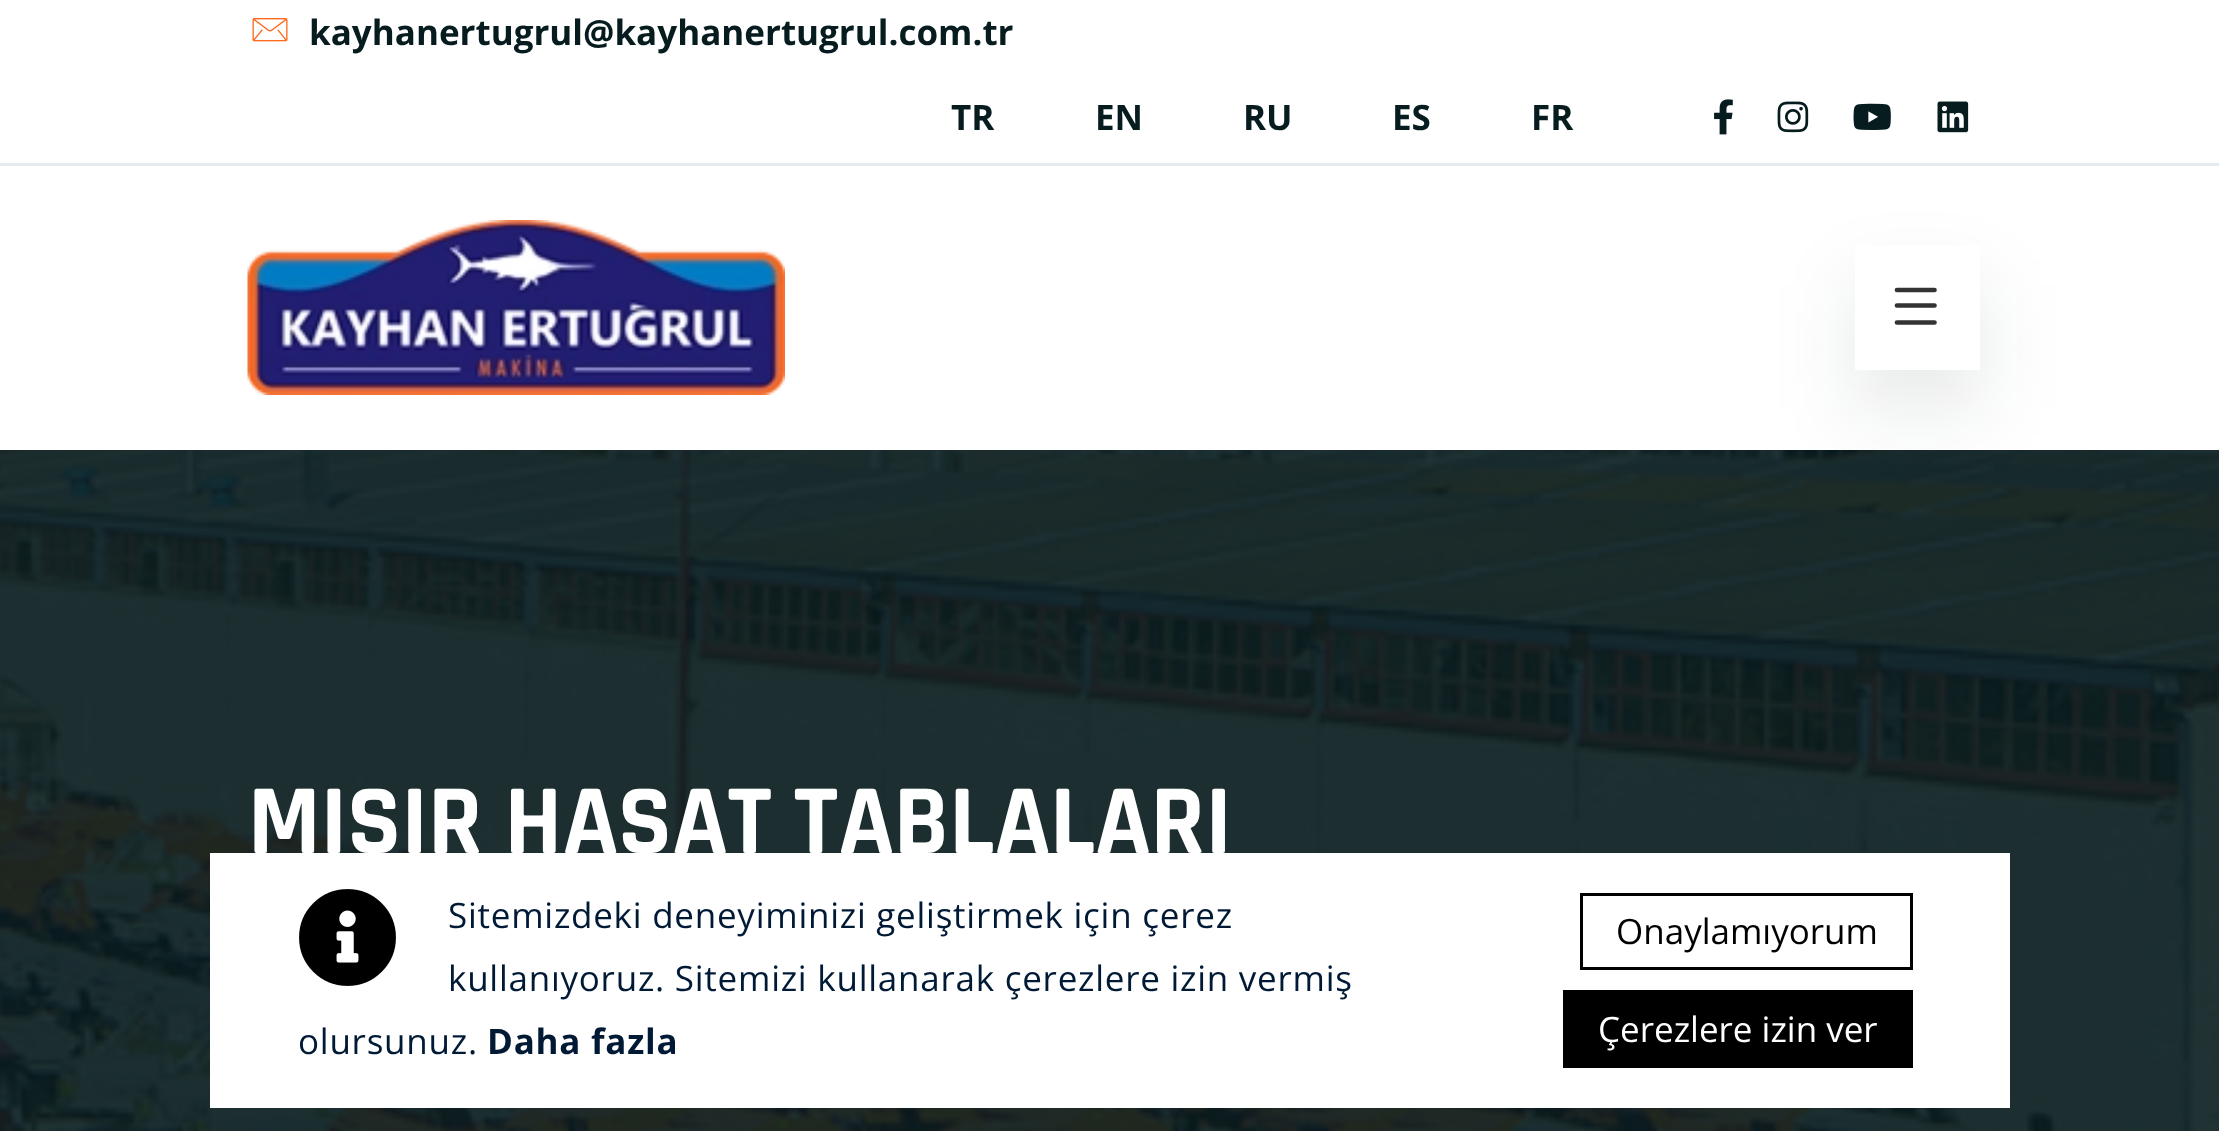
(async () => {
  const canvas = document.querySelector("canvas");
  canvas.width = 2219;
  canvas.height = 1131;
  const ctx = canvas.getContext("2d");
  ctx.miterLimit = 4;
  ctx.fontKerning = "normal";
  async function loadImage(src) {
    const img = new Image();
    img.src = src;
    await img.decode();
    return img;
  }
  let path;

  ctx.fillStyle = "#ffffff";
  ctx.fillRect(0, 0, 2219, 1131);
  ctx.fillStyle = "#e5eaee";
  ctx.fillRect(0, 163, 2219, 3);
  ctx.drawImage(await loadImage("img/1.png"), 252, 18, 36, 24);
  ctx.drawImage(await loadImage("img/2.png"), 1714, 99, 19, 36);
  ctx.drawImage(await loadImage("img/3.png"), 1777, 101, 32, 32);
  ctx.drawImage(await loadImage("img/4.png"), 1853, 103, 38, 27);
  ctx.drawImage(await loadImage("img/5.png"), 1937, 101, 32, 32);
  ctx.drawImage(await loadImage("img/6.png"), 247, 220, 538, 175);
  ctx.drawImage(await loadImage("img/7.png"), 0, 450, 2219, 681);
  ctx.save();
  path = new Path2D("M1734 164H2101V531H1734ZM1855 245H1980V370H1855Z");
  ctx.clip(path, "evenodd");
  ctx.fillStyle = "rgba(7, 28, 31, 0.1)";
  ctx.filter = "blur(40px)";
  ctx.beginPath();
  ctx.rect(1855, 285, 125, 125);
  ctx.fill();
  ctx.filter = "none";
  ctx.restore();
  path = new Path2D("M1897 290H1934.5M1897 305.5H1934.5M1897 322.5H1934.5");
  ctx.strokeStyle = "#333333";
  ctx.lineWidth = 4.7;
  ctx.lineCap = "round";
  ctx.stroke(path);
  ctx.fillStyle = "#ffffff";
  ctx.fillRect(210, 853, 1800, 255);
  ctx.drawImage(await loadImage("img/8.png"), 299, 889, 97, 97);
  ctx.strokeStyle = "#000000";
  ctx.lineWidth = 3;
  ctx.strokeRect(1581.5, 894.5, 330, 74);
  ctx.fillStyle = "#000000";
  ctx.fillRect(1563, 990, 350, 78);
  ctx.font = "bold 35px Open Sans";
  ctx.fillStyle = "#071c1f";
  for (const [text, x, y] of [
    ["kayhanertugrul@kayhanertugrul.com.tr", 309, 45],
    ["TR", 951, 130],
    ["EN", 1095, 130],
    ["RU", 1243, 130],
    ["ES", 1392, 130],
    ["FR", 1531, 130],
  ]) {
    ctx.fillText(text, x, y);
  }
  ctx.font = "bold 100px Rajdhani";
  ctx.fillStyle = "#ffffff";
  ctx.fillText("MISIR HASAT TABLALARI", 248, 853);
  ctx.letterSpacing = "0.75px";
  ctx.font = "35px Open Sans";
  ctx.fillStyle = "#001a36";
  for (const [text, x, y] of [
    ["Sitemizdeki deneyiminizi geliştirmek için çerez", 448, 928],
    ["kullanıyoruz. Sitemizi kullanarak çerezlere izin vermiş", 448, 991],
    ["olursunuz.", 298, 1054],
  ]) {
    ctx.fillText(text, x, y);
  }
  ctx.font = "bold 35px Open Sans";
  ctx.fillText("Daha fazla", 487, 1054);
  ctx.letterSpacing = "0px";
  ctx.font = "35px Open Sans";
  ctx.fillStyle = "#000000";
  ctx.fillText("Onaylamıyorum", 1616, 944);
  ctx.fillStyle = "#ffffff";
  ctx.fillText("Çerezlere izin ver", 1598, 1042);
})();
